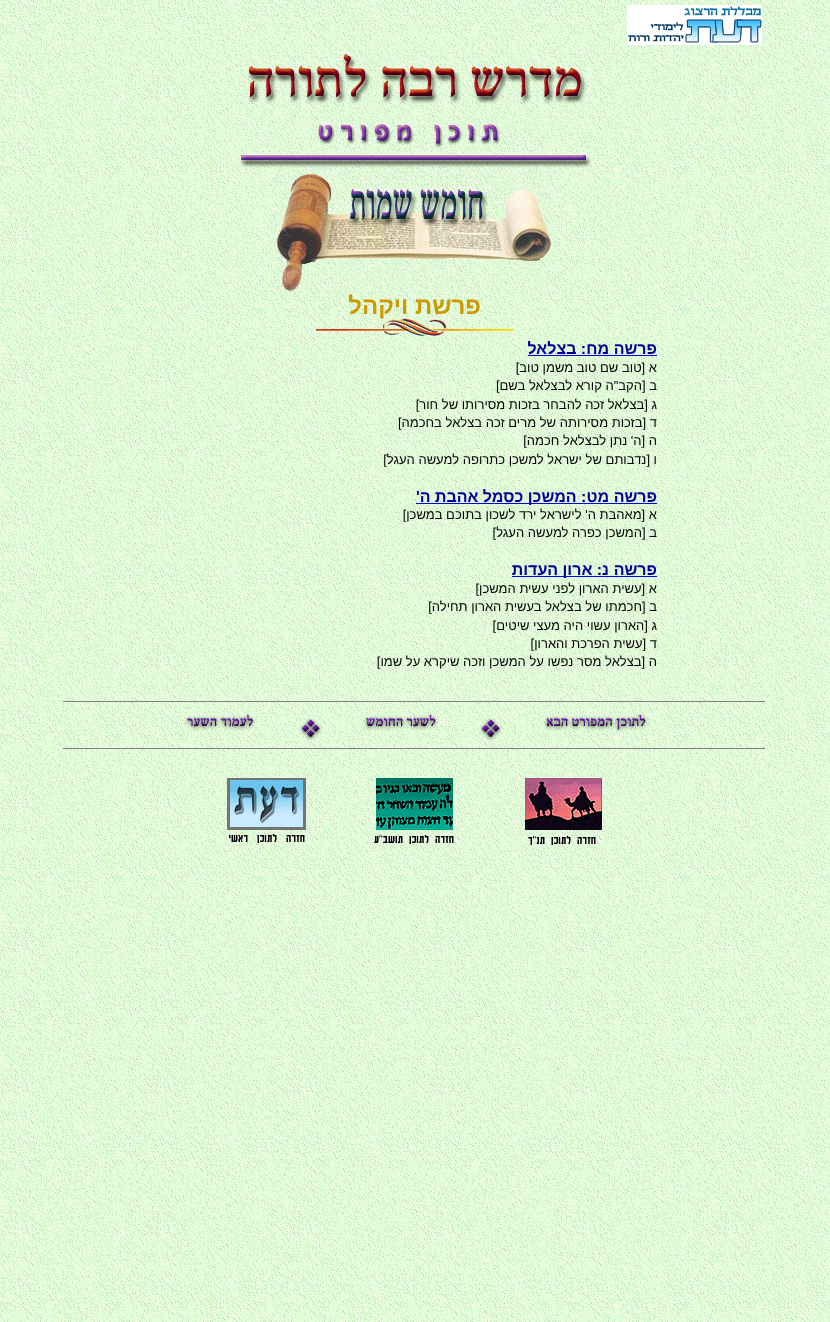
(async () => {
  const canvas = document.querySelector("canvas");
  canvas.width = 830;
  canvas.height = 1322;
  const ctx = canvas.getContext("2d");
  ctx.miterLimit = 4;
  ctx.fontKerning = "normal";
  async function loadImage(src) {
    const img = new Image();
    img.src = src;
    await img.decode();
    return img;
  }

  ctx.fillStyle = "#ffffff";
  ctx.fillRect(0, 0, 830, 1322);
  ctx.drawImage(await loadImage("img/1.png"), 0, 0, 830, 1322);
  ctx.drawImage(await loadImage("img/2.png"), 627, 5, 135, 40);
  ctx.drawImage(await loadImage("img/3.png"), 68, 3, 150, 44);
  ctx.drawImage(await loadImage("img/4.png"), 237, 50, 356, 120);
  ctx.drawImage(await loadImage("img/5.png"), 275, 170, 281, 124);
  for (const [x, y, w, h, color] of [
    [528, 355, 129, 1, "#0000ee"],
    [416, 503, 241, 1, "#0000ee"],
    [512, 576, 145, 1, "#0000ee"],
    [63, 701, 702, 1, "#808080"],
  ]) {
    ctx.fillStyle = color;
    ctx.fillRect(x, y, w, h);
  }
  ctx.drawImage(await loadImage("img/7.png"), 541, 710, 110, 23);
  ctx.drawImage(await loadImage("img/8.png"), 450, 717, 81, 23);
  ctx.drawImage(await loadImage("img/9.png"), 360, 710, 81, 23);
  ctx.drawImage(await loadImage("img/8.png"), 270, 717, 81, 23);
  ctx.drawImage(await loadImage("img/10.png"), 179, 710, 81, 23);
  ctx.fillRect(63, 748, 702, 1);
  ctx.drawImage(await loadImage("img/11.png"), 525, 778, 77, 67);
  ctx.drawImage(await loadImage("img/12.png"), 374, 778, 80, 66);
  ctx.drawImage(await loadImage("img/13.png"), 227, 778, 79, 65);
  ctx.direction = "rtl";
  ctx.font = "bold 24px Liberation Sans";
  ctx.fillStyle = "#cc9900";
  ctx.fillText("פרשת ויקהל", 481, 314);
  ctx.drawImage(await loadImage("img/6.png"), 316, 318, 198, 18);
  ctx.font = "bold 16px Liberation Sans";
  ctx.fillStyle = "#000099";
  ctx.fillText("פרשה", 657, 354);
  ctx.fillText("מח: בצלאל", 609, 354);
  ctx.font = "13px Liberation Sans";
  ctx.fillStyle = "#000000";
  for (const [text, x, y] of [
    ["א [טוב שם טוב משמן טוב]", 657, 372],
    ["ב [הקב\"ה קורא לבצלאל בשם]", 657, 390],
    ["ג [בצלאל זכה להבחר בזכות מסירותו של חור]", 657, 409],
    ["ד [בזכות מסירותה של מרים זכה בצלאל בחכמה]", 657, 427],
    ["ה [ה' נתן לבצלאל חכמה]", 657, 445],
    ["ו [נדבותם של ישראל למשכן כתרופה למעשה העגל]", 657, 464],
  ]) {
    ctx.fillText(text, x, y);
  }
  ctx.font = "bold 16px Liberation Sans";
  ctx.fillStyle = "#000099";
  ctx.fillText("פרשה", 657, 502);
  ctx.fillText("מט: המשכן כסמל אהבת ה'", 609, 502);
  ctx.font = "13px Liberation Sans";
  ctx.fillStyle = "#000000";
  ctx.fillText("א [מאהבת ה' לישראל ירד לשכון בתוכם במשכן]", 657, 519);
  ctx.fillText("ב [המשכן כפרה למעשה העגל]", 657, 537);
  ctx.font = "bold 16px Liberation Sans";
  ctx.fillStyle = "#000099";
  ctx.fillText("פרשה", 657, 575);
  ctx.fillText("נ: ארון העדות", 609, 575);
  ctx.font = "13px Liberation Sans";
  ctx.fillStyle = "#000000";
  for (const [text, x, y] of [
    ["א [עשית הארון לפני עשית המשכן]", 657, 593],
    ["ב [חכמתו של בצלאל בעשית הארון תחילה]", 657, 611],
    ["ג [הארון עשוי היה מעצי שיטים]", 657, 630],
    ["ד [עשית הפרכת והארון]", 657, 648],
    ["ה [בצלאל מסר נפשו על המשכן וזכה שיקרא על שמו]", 657, 666],
  ]) {
    ctx.fillText(text, x, y);
  }
})();
